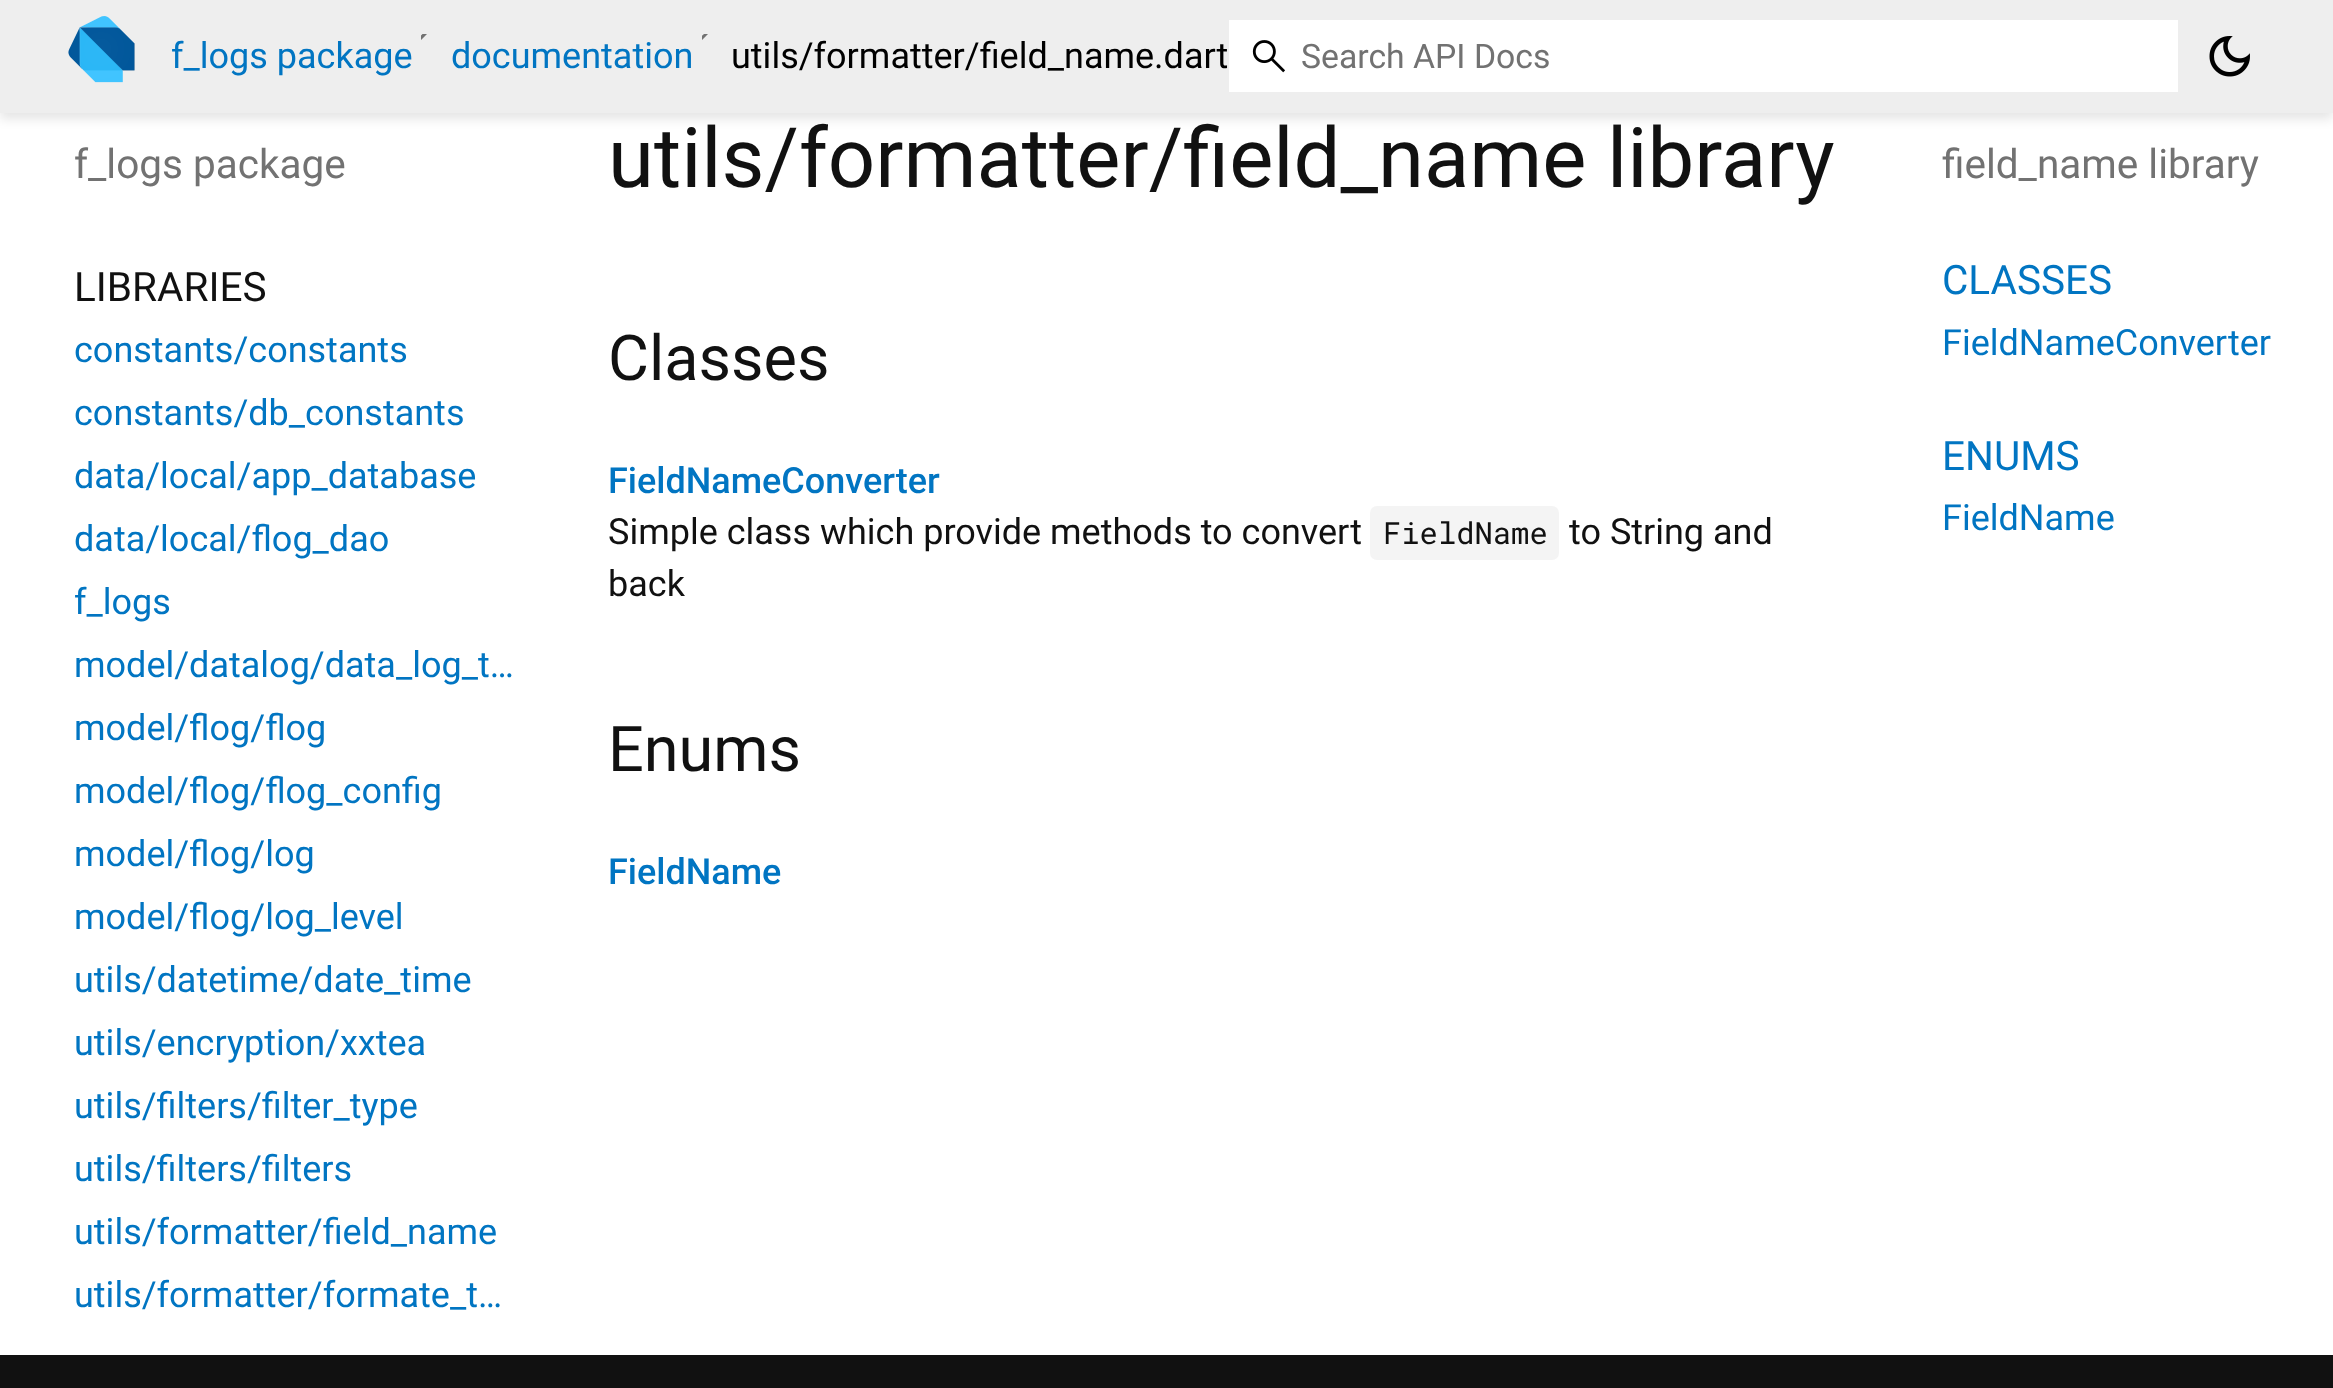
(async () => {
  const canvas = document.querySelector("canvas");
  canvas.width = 2333;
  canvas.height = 1388;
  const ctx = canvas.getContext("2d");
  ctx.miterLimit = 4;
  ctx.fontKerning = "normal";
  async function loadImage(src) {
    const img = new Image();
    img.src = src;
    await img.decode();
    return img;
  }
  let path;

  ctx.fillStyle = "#ffffff";
  ctx.fillRect(0, 0, 2333, 1388);
  ctx.fillStyle = "rgba(0, 0, 0, 0.1)";
  ctx.filter = "blur(5.5px)";
  ctx.beginPath();
  ctx.rect(0, 7, 2333, 112);
  ctx.fill();
  ctx.filter = "none";
  ctx.fillStyle = "#eeeeee";
  ctx.fillRect(0, 0, 2333, 113);
  ctx.drawImage(await loadImage("img/1.png"), 68, 16, 67, 67);
  ctx.save();
  ctx.beginPath();
  ctx.rect(421, 34, 16, 18);
  ctx.clip();
  ctx.fillStyle = "#727272";
  path = new Path2D("M418 25L415.5 27L422.5 34L415.5 40.5L418 43L427 34Z");
  ctx.fill(path);
  ctx.restore();
  ctx.save();
  ctx.beginPath();
  ctx.rect(702, 34, 16, 18);
  ctx.clip();
  ctx.fillStyle = "#727272";
  path = new Path2D("M699 25L697 27L704 34L697 40.5L699 43L708 34Z");
  ctx.fill(path);
  ctx.restore();
  ctx.fillStyle = "#ffffff";
  ctx.fillRect(1229, 20, 949, 72);
  ctx.drawImage(await loadImage("img/2.png"), 1252, 40, 33, 33);
  ctx.drawImage(await loadImage("img/3.png"), 2209, 36, 41, 41);
  ctx.fillStyle = "#f4f4f4";
  ctx.beginPath();
  ctx.roundRect(1370, 506, 189, 54, 7);
  ctx.fill();
  ctx.fillStyle = "#111111";
  ctx.fillRect(0, 1355, 2333, 33);
  ctx.font = "36px Roboto";
  ctx.fillStyle = "#0175c2";
  ctx.fillText("f_logs package", 171, 68);
  ctx.fillText("documentation", 451, 68);
  ctx.fillStyle = "#000000";
  ctx.fillText("utils/formatter/field_name.dart", 731, 68);
  ctx.font = "33.75px Roboto";
  ctx.fillStyle = "#727272";
  ctx.fillText("Search API Docs", 1301, 68);
  ctx.font = "40.5px Roboto";
  ctx.fillText("f_logs package", 74, 178);
  ctx.fillStyle = "#111111";
  ctx.fillText("LIBRARIES", 74, 301);
  ctx.font = "36px Roboto";
  ctx.fillStyle = "#0175c2";
  for (const [text, x, y] of [
    ["constants/constants", 74, 362],
    ["constants/db_constants", 74, 425],
    ["data/local/app_database", 74, 488],
    ["data/local/flog_dao", 74, 551],
    ["f_logs", 74, 614],
    ["model/datalog/data_log_t…", 74, 677],
    ["model/flog/flog", 74, 740],
    ["model/flog/flog_config", 74, 803],
    ["model/flog/log", 74, 866],
    ["model/flog/log_level", 74, 929],
    ["utils/datetime/date_time", 74, 992],
    ["utils/encryption/xxtea", 74, 1055],
    ["utils/filters/filter_type", 74, 1118],
    ["utils/filters/filters", 74, 1181],
    ["utils/formatter/field_name", 74, 1244],
    ["utils/formatter/formate_t…", 74, 1307],
  ]) {
    ctx.fillText(text, x, y);
  }
  ctx.font = "83.25px Roboto";
  ctx.fillStyle = "#111111";
  ctx.fillText("utils/formatter/field_name library", 608, 187);
  ctx.font = "63px Roboto";
  ctx.fillText("Classes", 608, 380);
  ctx.font = "500 36px Roboto";
  ctx.fillStyle = "#0175c2";
  ctx.fillText("FieldNameConverter", 608, 493);
  ctx.font = "36px Roboto";
  ctx.fillStyle = "#111111";
  ctx.fillText("Simple class which provide methods to convert", 608, 544);
  ctx.font = "30.5px Roboto Mono";
  ctx.fillText("FieldName", 1383, 544);
  ctx.font = "36px Roboto";
  ctx.fillText("to String and", 1569, 544);
  ctx.fillText("back", 608, 596);
  ctx.font = "63px Roboto";
  ctx.fillText("Enums", 608, 771);
  ctx.font = "500 36px Roboto";
  ctx.fillStyle = "#0175c2";
  ctx.fillText("FieldName", 608, 884);
  ctx.font = "40.5px Roboto";
  ctx.fillStyle = "#727272";
  ctx.fillText("field_name library", 1942, 178);
  ctx.fillStyle = "#0175c2";
  ctx.fillText("CLASSES", 1942, 294);
  ctx.font = "36px Roboto";
  ctx.fillText("FieldNameConverter", 1942, 355);
  ctx.font = "40.5px Roboto";
  ctx.fillText("ENUMS", 1942, 470);
  ctx.font = "36px Roboto";
  ctx.fillText("FieldName", 1942, 530);
})();
